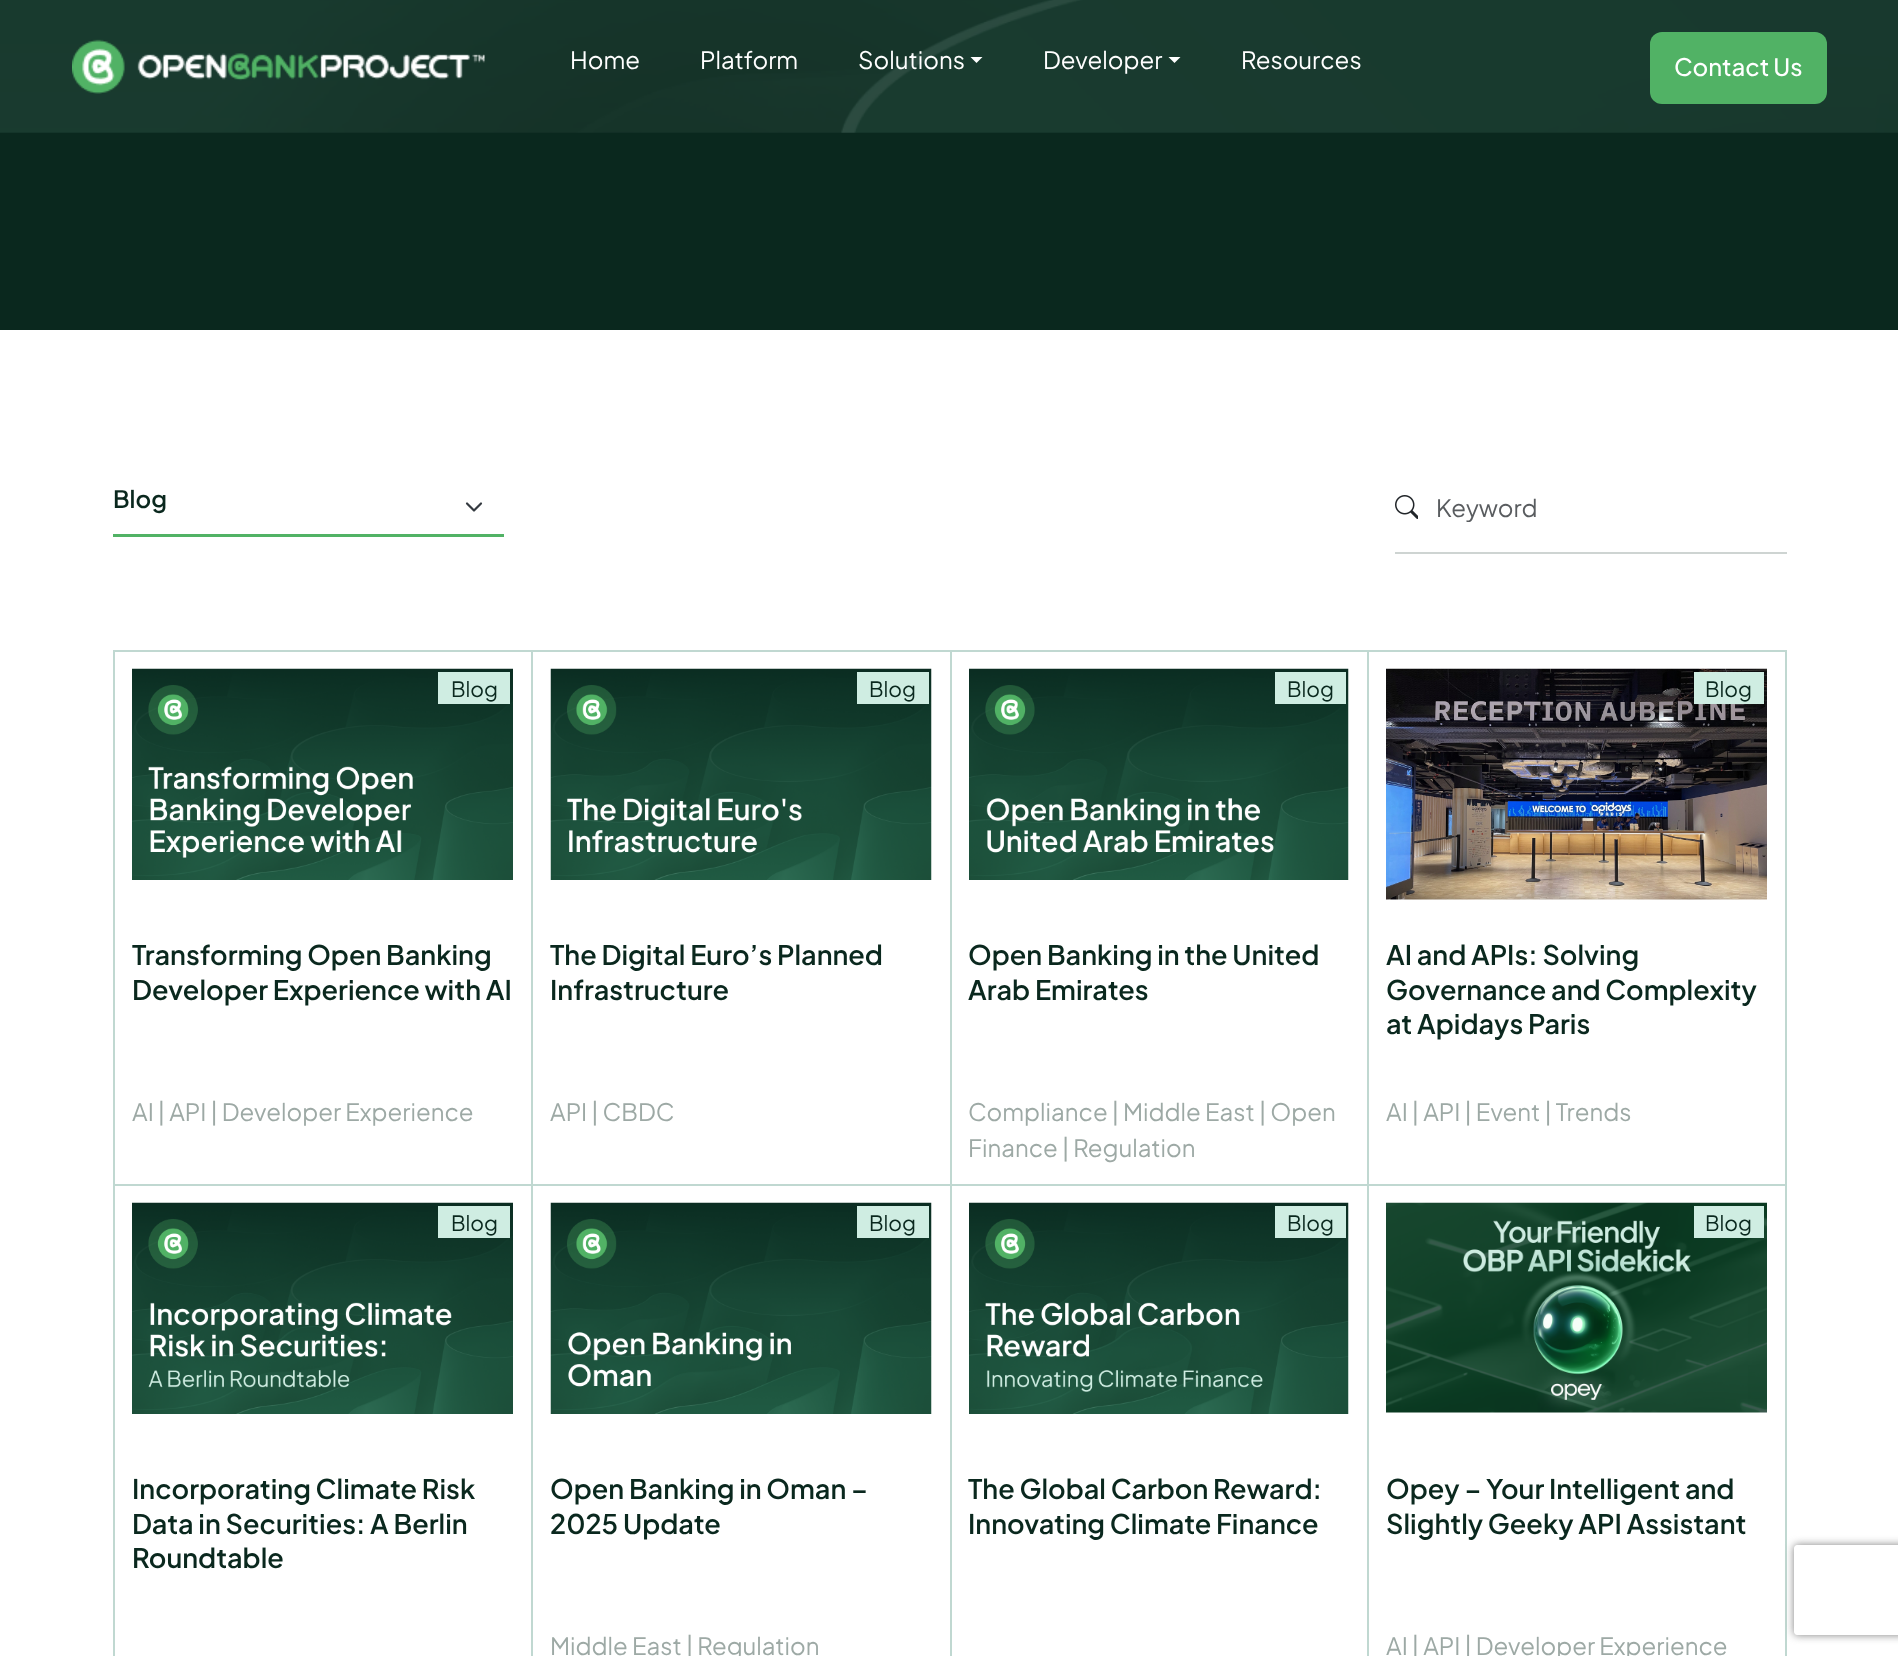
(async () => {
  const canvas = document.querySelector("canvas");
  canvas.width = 1898;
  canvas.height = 1656;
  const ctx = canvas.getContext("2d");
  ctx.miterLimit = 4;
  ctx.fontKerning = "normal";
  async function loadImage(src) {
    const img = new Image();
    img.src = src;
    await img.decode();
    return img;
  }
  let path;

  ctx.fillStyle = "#ffffff";
  ctx.fillRect(0, 0, 1898, 1656);
  ctx.fillStyle = "#0a281e";
  ctx.fillRect(0, 132, 1898, 198);
  ctx.drawImage(await loadImage("img/1.png"), 0, 0, 1898, 133);
  ctx.drawImage(await loadImage("img/2.png"), 72, 39, 413, 55);
  ctx.fillStyle = "#ffffff";
  path = new Path2D("M970.5 57H982.5L976.5 63Z");
  ctx.fill(path);
  path = new Path2D("M1168.5 57H1180.5L1174.5 63Z");
  ctx.fill(path);
  ctx.fillStyle = "#51b265";
  ctx.beginPath();
  ctx.roundRect(1650, 32, 177, 72, 12);
  ctx.fill();
  path = new Path2D("M467 503.5L474 510.5L481 503.5");
  ctx.strokeStyle = "#343a40";
  ctx.lineWidth = 2.2;
  ctx.lineCap = "round";
  ctx.lineJoin = "round";
  ctx.stroke(path);
  ctx.fillRect(113, 534, 391, 3);
  ctx.fillStyle = "#ced4d2";
  ctx.fillRect(1395, 552, 392, 2);
  ctx.drawImage(await loadImage("img/3.png"), 1395, 495, 23, 24);
  for (const [x, y, w, h, color] of [
    [113, 650, 1674, 2, "#c0d8d1"],
    [113, 650, 2, 1006, "#c0d8d1"],
    [531, 651, 2, 534, "#c0d8d1"],
    [114, 1184, 419, 2, "#c0d8d1"],
  ]) {
    ctx.fillStyle = color;
    ctx.fillRect(x, y, w, h);
  }
  ctx.drawImage(await loadImage("img/4.png"), 132, 668, 381, 212);
  for (const [x, y, w, h, color] of [
    [438, 672, 72, 32, "#cfede2"],
    [950, 651, 2, 534, "#c0d8d1"],
    [533, 1184, 418, 2, "#c0d8d1"],
  ]) {
    ctx.fillStyle = color;
    ctx.fillRect(x, y, w, h);
  }
  ctx.drawImage(await loadImage("img/5.png"), 550, 668, 382, 212);
  for (const [x, y, w, h, color] of [
    [857, 672, 72, 32, "#cfede2"],
    [1367, 651, 2, 534, "#c0d8d1"],
    [951, 1184, 417, 2, "#c0d8d1"],
  ]) {
    ctx.fillStyle = color;
    ctx.fillRect(x, y, w, h);
  }
  ctx.drawImage(await loadImage("img/6.png"), 969, 668, 380, 212);
  for (const [x, y, w, h, color] of [
    [1275, 672, 71, 32, "#cfede2"],
    [1785, 651, 2, 534, "#c0d8d1"],
    [1368, 1184, 419, 2, "#c0d8d1"],
  ]) {
    ctx.fillStyle = color;
    ctx.fillRect(x, y, w, h);
  }
  ctx.drawImage(await loadImage("img/7.png"), 1386, 668, 381, 232);
  ctx.fillStyle = "#cfede2";
  ctx.fillRect(1694, 672, 70, 32);
  ctx.fillStyle = "#c0d8d1";
  ctx.fillRect(531, 1185, 2, 471);
  ctx.drawImage(await loadImage("img/8.png"), 132, 1202, 381, 212);
  ctx.fillStyle = "#cfede2";
  ctx.fillRect(438, 1206, 72, 32);
  ctx.fillStyle = "#c0d8d1";
  ctx.fillRect(950, 1185, 2, 471);
  ctx.drawImage(await loadImage("img/9.png"), 550, 1202, 382, 212);
  ctx.fillStyle = "#cfede2";
  ctx.fillRect(857, 1206, 72, 32);
  ctx.fillStyle = "#c0d8d1";
  ctx.fillRect(1367, 1185, 2, 471);
  ctx.drawImage(await loadImage("img/10.png"), 969, 1202, 380, 212);
  ctx.fillStyle = "#cfede2";
  ctx.fillRect(1275, 1206, 71, 32);
  ctx.fillStyle = "#c0d8d1";
  ctx.fillRect(1785, 1185, 2, 471);
  ctx.drawImage(await loadImage("img/11.png"), 1386, 1202, 381, 211);
  ctx.fillStyle = "#cfede2";
  ctx.fillRect(1694, 1206, 70, 32);
  ctx.save();
  path = new Path2D("M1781 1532H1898V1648H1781ZM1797 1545H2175C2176.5 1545 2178 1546.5 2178 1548V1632C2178 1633.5 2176.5 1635 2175 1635H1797C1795.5 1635 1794 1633.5 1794 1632V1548C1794 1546.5 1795.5 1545 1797 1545Z");
  ctx.clip(path, "evenodd");
  ctx.fillStyle = "#808080";
  ctx.filter = "blur(4px)";
  ctx.beginPath();
  ctx.roundRect(1794, 1545, 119, 90, 3);
  ctx.fill();
  ctx.filter = "none";
  ctx.restore();
  ctx.font = "24px Plus Jakarta Sans";
  ctx.fillStyle = "#ffffff";
  for (const [text, x, y] of [
    ["Home", 570, 69],
    ["Platform", 700, 69],
    ["Solutions", 858, 69],
    ["Developer", 1043, 69],
    ["Resources", 1241, 69],
  ]) {
    ctx.fillText(text, x, y);
  }
  ctx.font = "500 24px Plus Jakarta Sans";
  ctx.fillText("Contact Us", 1674, 76);
  ctx.font = "600 24px Plus Jakarta Sans";
  ctx.fillStyle = "#0a281e";
  ctx.fillText("Blog", 113, 508);
  ctx.save();
  ctx.beginPath();
  ctx.rect(1436, 491, 333, 31);
  ctx.clip();
  ctx.font = "24px Plus Jakarta Sans";
  ctx.fillStyle = "#595c5f";
  ctx.fillText("Keyword", 1436, 517);
  ctx.restore();
  ctx.font = "21px Plus Jakarta Sans";
  ctx.fillText("Blog", 451, 697);
  ctx.font = "600 27px Plus Jakarta Sans";
  ctx.fillText("Transforming Open Banking", 132, 965);
  ctx.fillText("Developer Experience with AI", 132, 1000);
  ctx.font = "24px Plus Jakarta Sans";
  ctx.fillStyle = "#9da9a5";
  ctx.fillText("AI | API | Developer Experience", 132, 1121);
  ctx.font = "21px Plus Jakarta Sans";
  ctx.fillStyle = "#0a281e";
  ctx.fillText("Blog", 869, 697);
  ctx.font = "600 27px Plus Jakarta Sans";
  ctx.fillText("The Digital Euro’s Planned", 550, 965);
  ctx.fillText("Infrastructure", 550, 1000);
  ctx.font = "24px Plus Jakarta Sans";
  ctx.fillStyle = "#9da9a5";
  ctx.fillText("API | CBDC", 550, 1121);
  ctx.font = "21px Plus Jakarta Sans";
  ctx.fillStyle = "#0a281e";
  ctx.fillText("Blog", 1287, 697);
  ctx.font = "600 27px Plus Jakarta Sans";
  ctx.fillText("Open Banking in the United", 968, 965);
  ctx.fillText("Arab Emirates", 968, 1000);
  ctx.font = "24px Plus Jakarta Sans";
  ctx.fillStyle = "#9da9a5";
  ctx.fillText("Compliance | Middle East | Open", 968, 1121);
  ctx.fillText("Finance | Regulation", 968, 1157);
  ctx.font = "21px Plus Jakarta Sans";
  ctx.fillStyle = "#0a281e";
  ctx.fillText("Blog", 1705, 697);
  ctx.font = "600 27px Plus Jakarta Sans";
  for (const [text, x, y] of [
    ["AI and APIs: Solving", 1386, 965],
    ["Governance and Complexity", 1386, 1000],
    ["at Apidays Paris", 1386, 1034],
  ]) {
    ctx.fillText(text, x, y);
  }
  ctx.font = "24px Plus Jakarta Sans";
  ctx.fillStyle = "#9da9a5";
  ctx.fillText("AI | API | Event | Trends", 1386, 1121);
  ctx.font = "21px Plus Jakarta Sans";
  ctx.fillStyle = "#0a281e";
  ctx.fillText("Blog", 451, 1231);
  ctx.font = "600 27px Plus Jakarta Sans";
  for (const [text, x, y] of [
    ["Incorporating Climate Risk", 132, 1499],
    ["Data in Securities: A Berlin", 132, 1534],
    ["Roundtable", 132, 1568],
  ]) {
    ctx.fillText(text, x, y);
  }
  ctx.font = "21px Plus Jakarta Sans";
  ctx.fillText("Blog", 869, 1231);
  ctx.font = "600 27px Plus Jakarta Sans";
  ctx.fillText("Open Banking in Oman –", 550, 1499);
  ctx.fillText("2025 Update", 550, 1534);
  ctx.font = "24px Plus Jakarta Sans";
  ctx.fillStyle = "#9da9a5";
  ctx.fillText("Middle East | Regulation", 550, 1655);
  ctx.font = "21px Plus Jakarta Sans";
  ctx.fillStyle = "#0a281e";
  ctx.fillText("Blog", 1287, 1231);
  ctx.font = "600 27px Plus Jakarta Sans";
  ctx.fillText("The Global Carbon Reward:", 968, 1499);
  ctx.fillText("Innovating Climate Finance", 968, 1534);
  ctx.font = "21px Plus Jakarta Sans";
  ctx.fillText("Blog", 1705, 1231);
  ctx.font = "600 27px Plus Jakarta Sans";
  ctx.fillText("Opey – Your Intelligent and", 1386, 1499);
  ctx.fillText("Slightly Geeky API Assistant", 1386, 1534);
  ctx.font = "24px Plus Jakarta Sans";
  ctx.fillStyle = "#9da9a5";
  ctx.fillText("AI | API | Developer Experience", 1386, 1655);
})();
